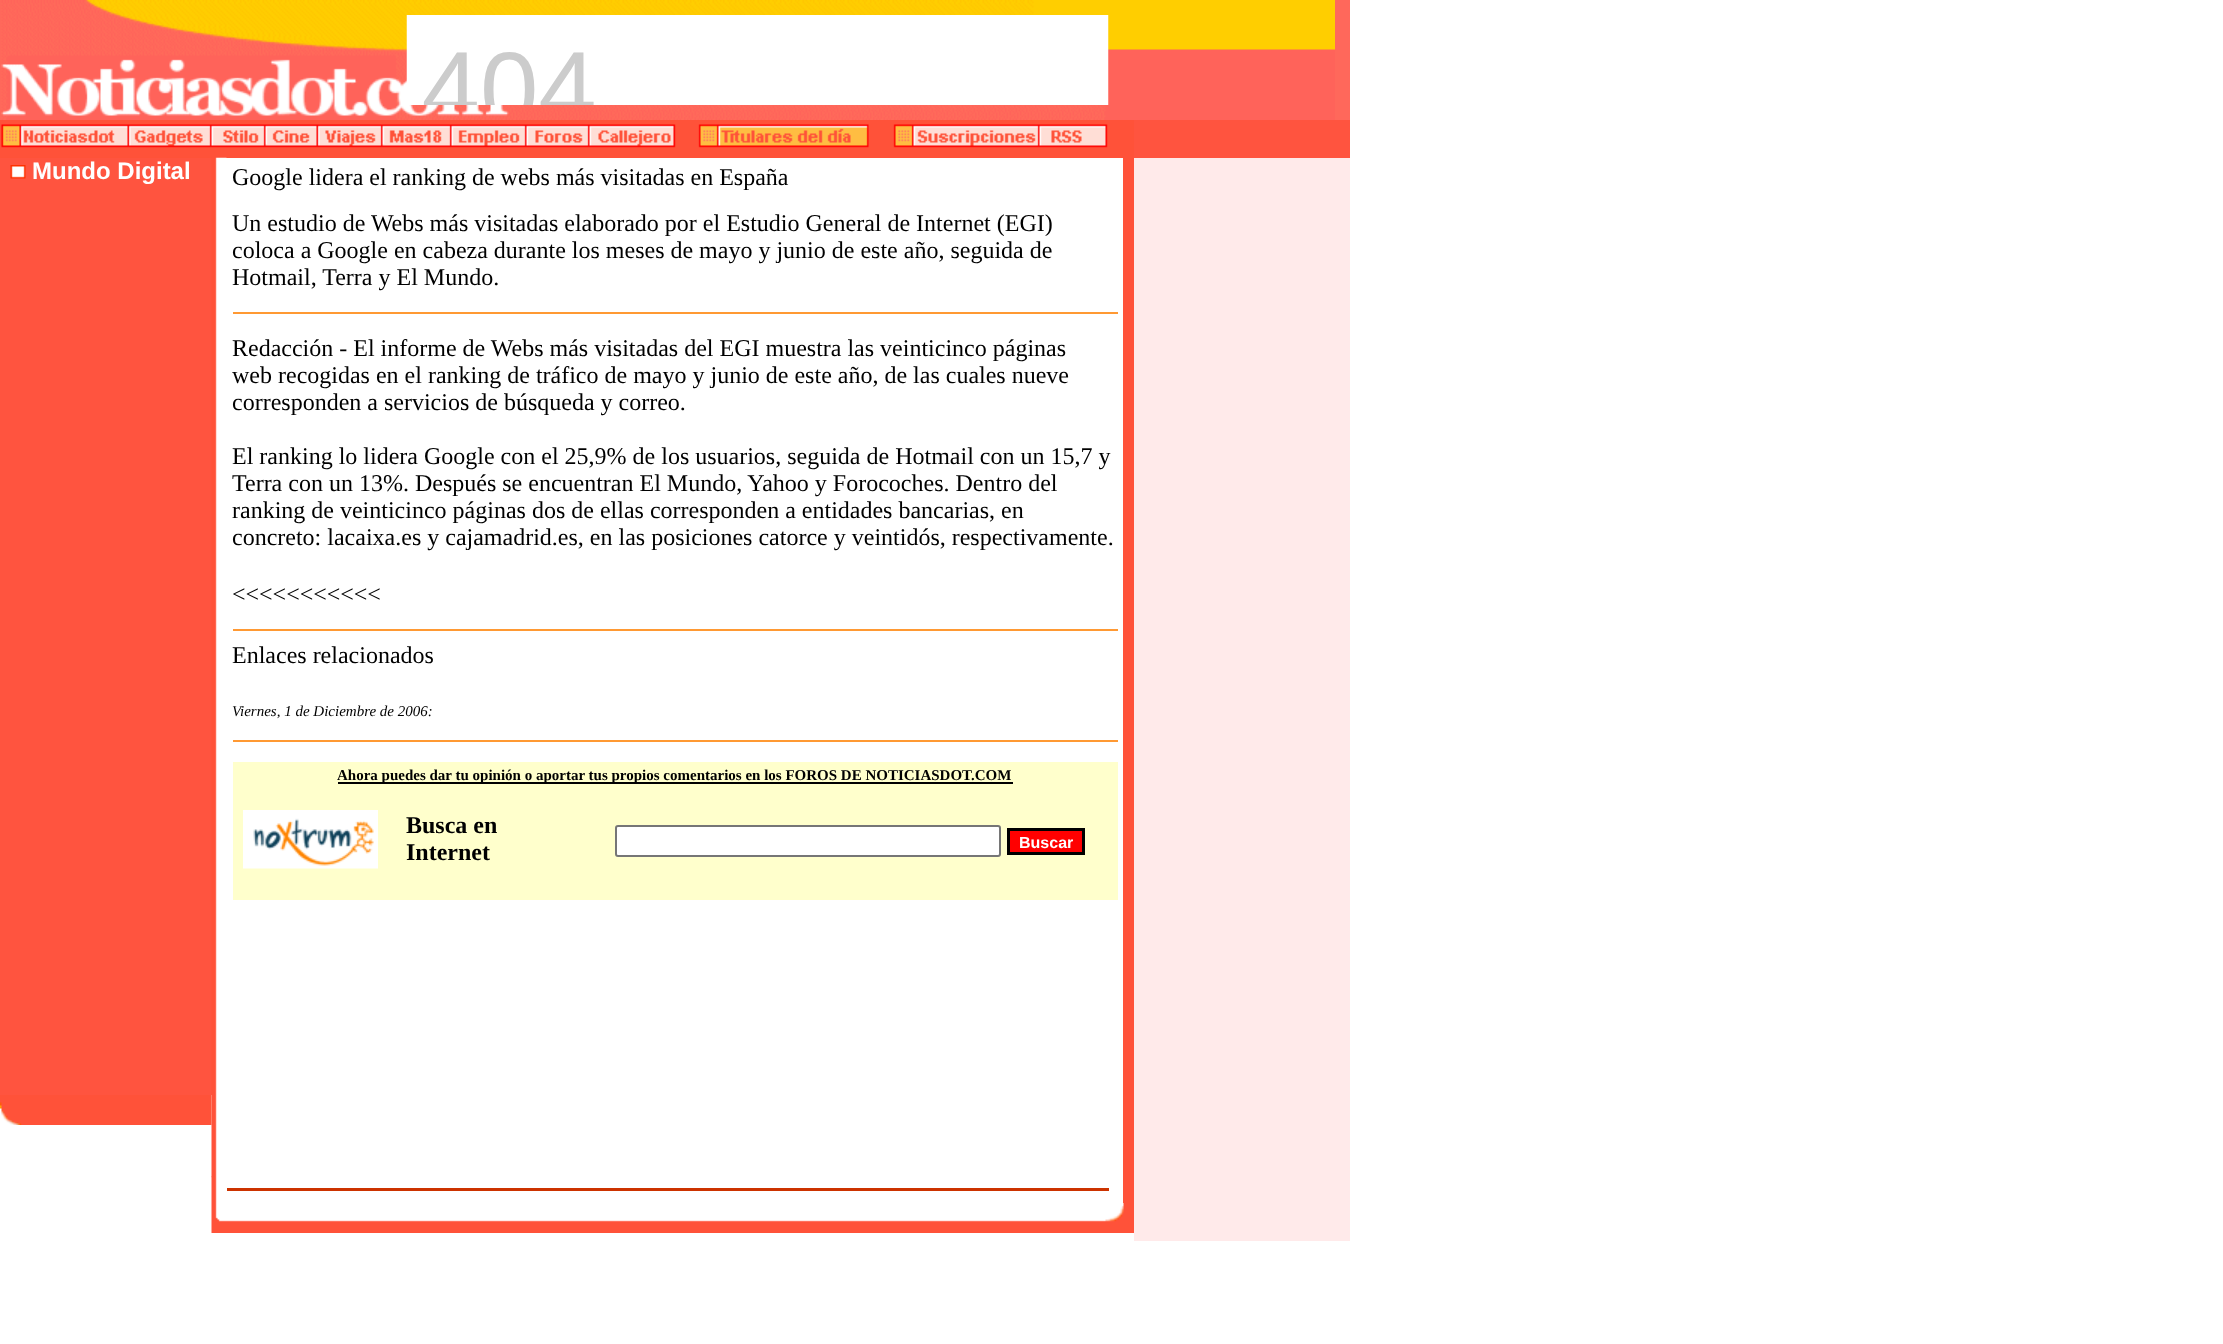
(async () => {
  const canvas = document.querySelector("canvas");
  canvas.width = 2223;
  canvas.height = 1344;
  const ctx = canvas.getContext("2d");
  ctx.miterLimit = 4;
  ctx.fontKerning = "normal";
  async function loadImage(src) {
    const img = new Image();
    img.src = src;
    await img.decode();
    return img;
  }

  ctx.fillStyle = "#ffffff";
  ctx.fillRect(0, 0, 2223, 1344);
  ctx.fillStyle = "#ff685b";
  ctx.fillRect(0, 0, 1350, 120);
  ctx.drawImage(await loadImage("img/1.png"), 1, 0, 1334, 120);
  ctx.drawImage(await loadImage("img/2.png"), 406, 15, 703, 90);
  for (const [x, y, w, h, color] of [
    [0, 120, 1134, 38, "#ff5239"],
    [0, 158, 212, 37, "#ff543f"],
    [0, 195, 212, 900, "#ff543f"],
  ]) {
    ctx.fillStyle = color;
    ctx.fillRect(x, y, w, h);
  }
  ctx.drawImage(await loadImage("img/6.png"), 211, 157, 16, 1019);
  ctx.drawImage(await loadImage("img/3.png"), 1, 124, 1107, 34);
  ctx.fillRect(1134, 120, 216, 38);
  ctx.drawImage(await loadImage("img/4.png"), 10, 165, 16, 14);
  ctx.drawImage(await loadImage("img/5.png"), 0, 1095, 212, 30);
  for (const [x, y, w, h, color] of [
    [233, 312, 885, 2, "#ff9933"],
    [233, 629, 885, 2, "#ff9933"],
    [233, 740, 885, 2, "#ff9933"],
    [233, 762, 885, 138, "#ffffcc"],
    [338, 782, 675, 2, "#000000"],
  ]) {
    ctx.fillStyle = color;
    ctx.fillRect(x, y, w, h);
  }
  ctx.drawImage(await loadImage("img/7.png"), 243, 810, 135, 59);
  ctx.fillStyle = "#ffffff";
  ctx.beginPath();
  ctx.roundRect(616, 826, 384, 30, 2);
  ctx.fill();
  ctx.strokeStyle = "#767676";
  ctx.lineWidth = 2;
  ctx.stroke();
  ctx.fillStyle = "#ff0000";
  ctx.beginPath();
  ctx.rect(1008.5, 829.5, 75, 24);
  ctx.fill();
  ctx.strokeStyle = "#000000";
  ctx.lineWidth = 3;
  ctx.stroke();
  ctx.fillStyle = "#ff5239";
  ctx.fillRect(1123, 158, 11, 1045);
  ctx.fillStyle = "#ffeaea";
  ctx.fillRect(1134, 158, 216, 1083);
  ctx.drawImage(await loadImage("img/8.png"), 211, 1176, 6, 27);
  ctx.drawImage(await loadImage("img/10.png"), 211, 1176, 1, 2);
  ctx.drawImage(await loadImage("img/9.png"), 211, 1176, 1, 2);
  ctx.fillStyle = "#cc3300";
  ctx.fillRect(227, 1188, 882, 3);
  ctx.drawImage(await loadImage("img/11.png"), 211, 1203, 923, 30);
  ctx.font = "bold 24px Liberation Sans";
  ctx.fillStyle = "#ffffff";
  ctx.fillText("Mundo Digital", 32, 179);
  ctx.font = "24px Liberation Serif";
  ctx.fillStyle = "#000000";
  for (const [text, x, y] of [
    ["Google lidera el ranking de webs más visitadas en España", 232, 185],
    ["Un estudio de Webs más visitadas elaborado por el Estudio General de Internet (EGI)", 232, 231],
    ["coloca a Google en cabeza durante los meses de mayo y junio de este año, seguida de", 232, 258],
    ["Hotmail, Terra y El Mundo.", 232, 285],
    ["Redacción - El informe de Webs más visitadas del EGI muestra las veinticinco páginas", 232, 356],
    ["web recogidas en el ranking de tráfico de mayo y junio de este año, de las cuales nueve", 232, 383],
    ["corresponden a servicios de búsqueda y correo.", 232, 410],
    ["El ranking lo lidera Google con el 25,9% de los usuarios, seguida de Hotmail con un 15,7 y", 232, 464],
    ["Terra con un 13%. Después se encuentran El Mundo, Yahoo y Forocoches. Dentro del", 232, 491],
    ["ranking de veinticinco páginas dos de ellas corresponden a entidades bancarias, en", 232, 518],
    ["concreto: lacaixa.es y cajamadrid.es, en las posiciones catorce y veintidós, respectivamente.", 232, 545],
    ["<<<<<<<<<<<", 232, 602],
    ["Enlaces relacionados", 232, 663],
  ]) {
    ctx.fillText(text, x, y);
  }
  ctx.font = "italic 15px Liberation Serif";
  ctx.fillText("Viernes, 1 de Diciembre de 2006:", 232, 716);
  ctx.font = "bold 15px Liberation Serif";
  ctx.fillText("Ahora puedes dar tu opinión o aportar tus propios comentarios en los FOROS DE NOTICIASDOT.COM", 337, 780);
  ctx.font = "bold 24px Liberation Serif";
  ctx.fillText("Busca en", 406, 833);
  ctx.fillText("Internet", 406, 860);
  ctx.font = "bold 16px Liberation Sans";
  ctx.fillStyle = "#ffffff";
  ctx.fillText("Buscar", 1019, 848);
})();
